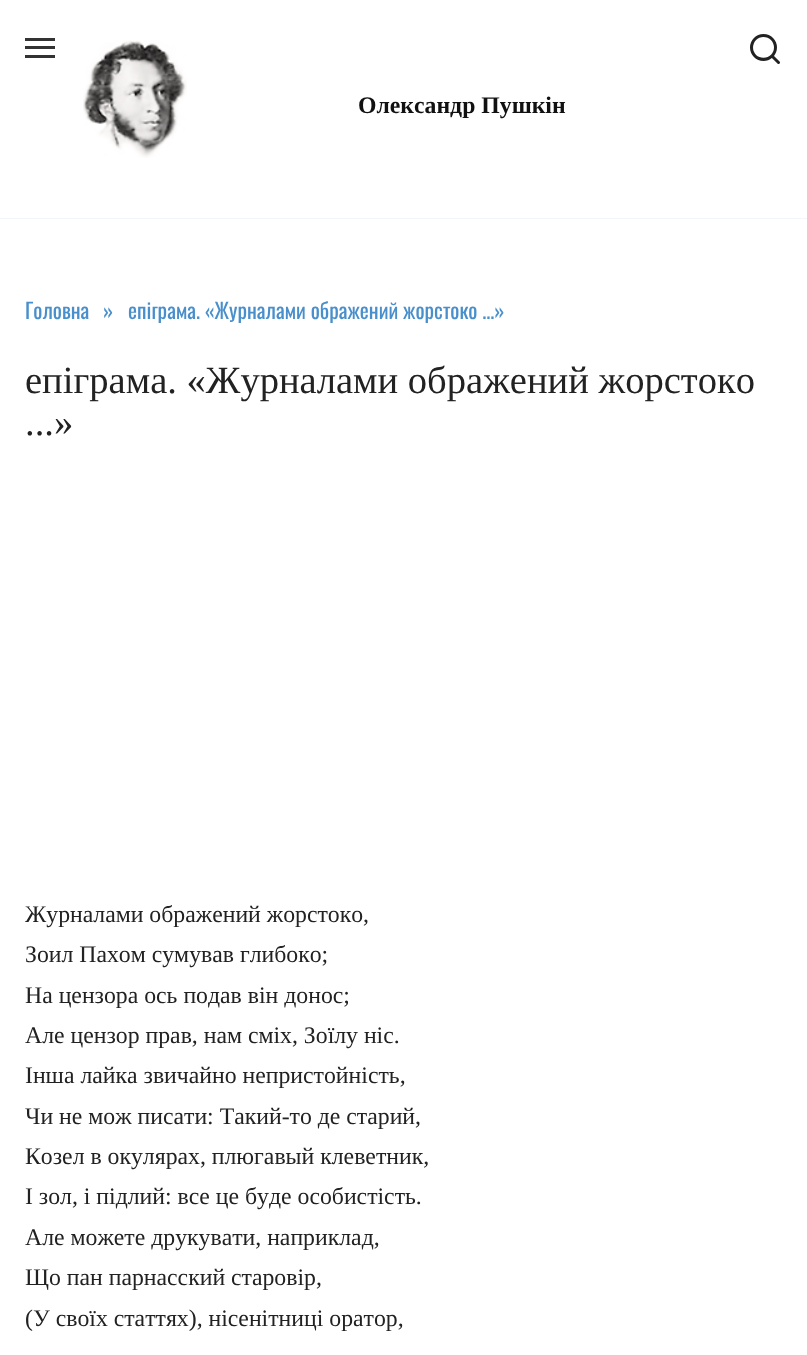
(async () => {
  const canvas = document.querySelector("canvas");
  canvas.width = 807;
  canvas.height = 1355;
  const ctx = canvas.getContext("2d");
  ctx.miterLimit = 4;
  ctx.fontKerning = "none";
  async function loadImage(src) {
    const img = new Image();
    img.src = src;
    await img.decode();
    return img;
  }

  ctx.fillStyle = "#ffffff";
  ctx.fillRect(0, 0, 807, 1355);
  for (const [x, y, w, h, color] of [
    [0, 218, 807, 1, "#f2f5f9"],
    [25, 38, 30, 3, "#333333"],
    [25, 46, 30, 3, "#333333"],
    [25, 55, 30, 3, "#333333"],
  ]) {
    ctx.fillStyle = color;
    ctx.fillRect(x, y, w, h);
  }
  ctx.drawImage(await loadImage("img/1.png"), 83, 40, 104, 118);
  ctx.font = "36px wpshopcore";
  ctx.fillStyle = "#222222";
  ctx.fillText("🔍", 747, 64);
  ctx.font = "bold 23.75px Liberation Serif";
  ctx.fillStyle = "#111111";
  ctx.fillText("Олександр Пушкін", 358, 113);
  ctx.font = "21.4px Oswald";
  ctx.fillStyle = "#498fcc";
  for (const [text, x, y] of [
    ["Головна", 25, 319],
    ["»", 103, 319],
    ["епіграма. «Журналами ображений жорстоко ...»", 128, 319],
  ]) {
    ctx.fillText(text, x, y);
  }
  ctx.font = "38.6px Liberation Serif";
  ctx.fillStyle = "#222222";
  ctx.fillText("епіграма. «Журналами ображений жорстоко", 25, 393);
  ctx.fillText("...»", 25, 435);
  ctx.font = "23.75px Liberation Serif";
  for (const [text, x, y] of [
    ["Журналами ображений жорстоко,", 25, 922],
    ["Зоил Пахом сумував глибоко;", 25, 962],
    ["На цензора ось подав він донос;", 25, 1003],
    ["Але цензор прав, нам сміх, Зоїлу ніс.", 25, 1043],
    ["Інша лайка звичайно непристойність,", 25, 1083],
    ["Чи не мож писати: Такий-то де старий,", 25, 1124],
    ["Козел в окулярах, плюгавый клеветник,", 25, 1164],
    ["І зол, і підлий: все це буде особистість.", 25, 1204],
    ["Але можете друкувати, наприклад,", 25, 1245],
    ["Що пан парнасский старовір,", 25, 1285],
    ["(У своїх статтях), нісенітниці оратор,", 25, 1326],
  ]) {
    ctx.fillText(text, x, y);
  }
})();
